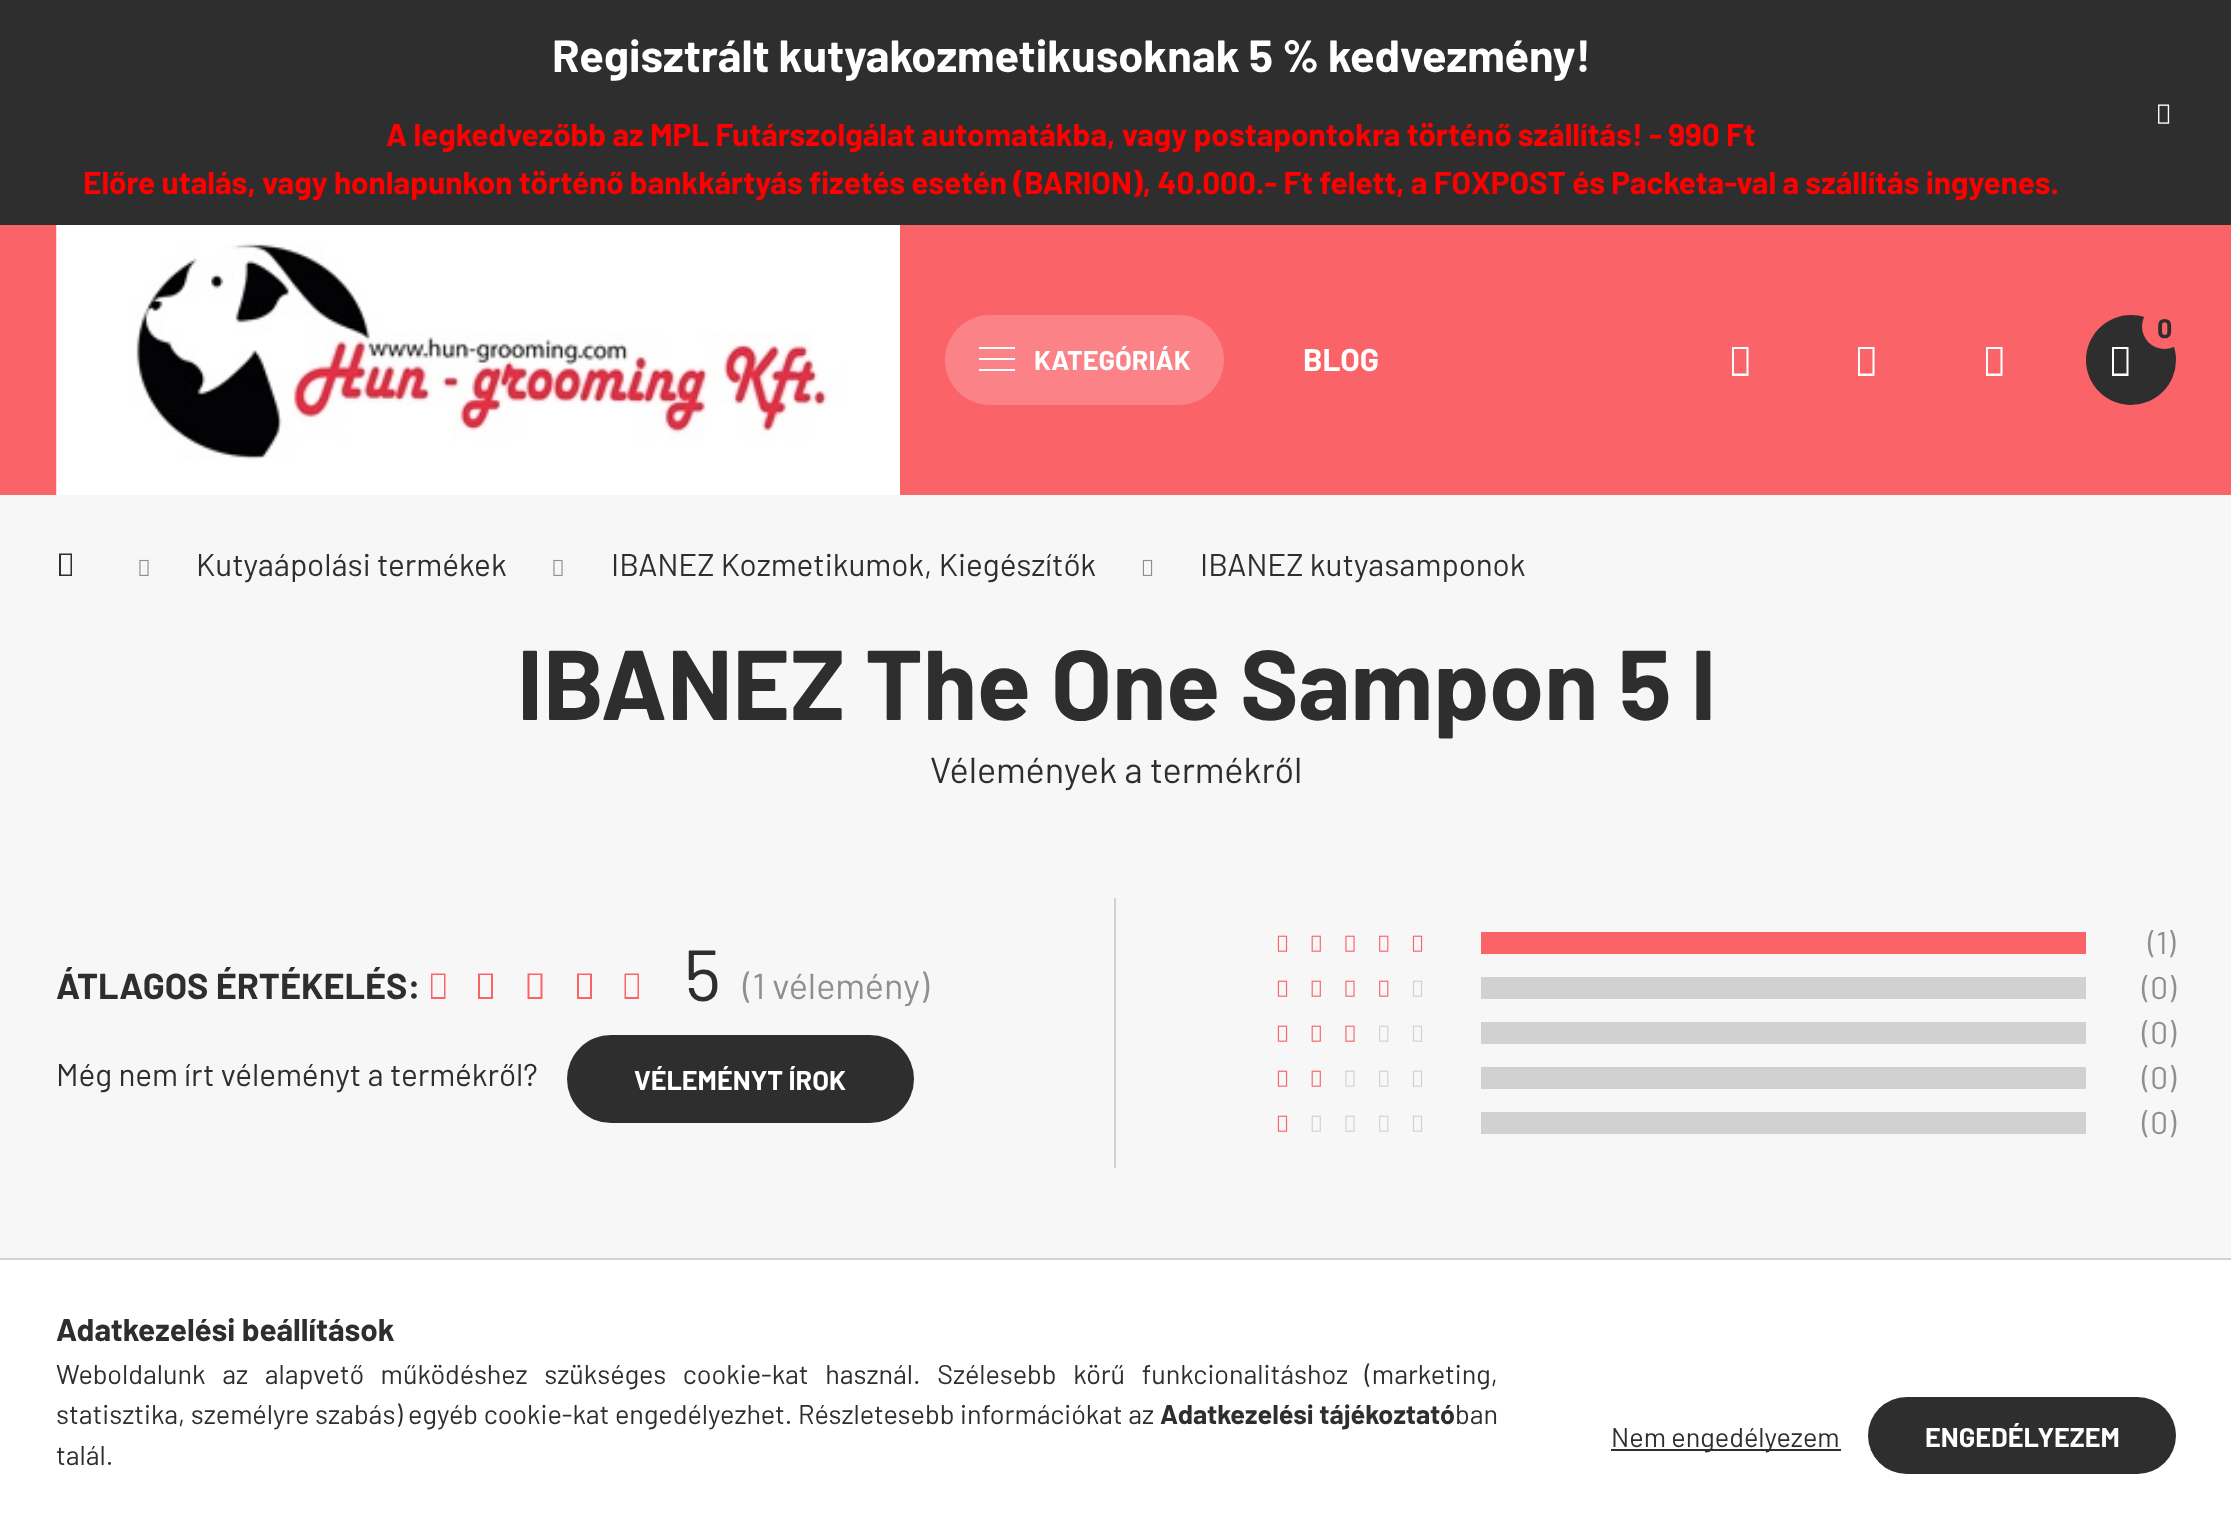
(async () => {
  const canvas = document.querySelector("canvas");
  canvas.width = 2231;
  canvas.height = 1517;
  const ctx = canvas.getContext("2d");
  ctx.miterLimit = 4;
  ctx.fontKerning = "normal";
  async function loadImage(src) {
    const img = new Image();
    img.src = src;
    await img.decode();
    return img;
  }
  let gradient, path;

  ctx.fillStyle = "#f7f7f7";
  ctx.fillRect(0, 0, 2231, 1517);
  ctx.fillStyle = "#2e2e2e";
  ctx.fillRect(0, 0, 2231, 225);
  ctx.drawImage(await loadImage("img/1.png"), 2158, 104, 12, 20);
  ctx.fillStyle = "#fa6469";
  ctx.fillRect(0, 225, 2231, 270);
  ctx.drawImage(await loadImage("img/2.png"), 56, 225, 844, 270);
  ctx.fillStyle = "#fb8387";
  ctx.beginPath();
  ctx.roundRect(945, 315, 279, 90, 45);
  ctx.fill();
  for (const [x, y, w, h, color] of [
    [979, 347, 36, 2, "#ffffff"],
    [979, 358, 36, 2, "#ffffff"],
    [979, 369, 36, 2, "#ffffff"],
  ]) {
    ctx.fillStyle = color;
    ctx.fillRect(x, y, w, h);
  }
  ctx.fillStyle = "#2e2e2e";
  ctx.beginPath();
  ctx.arc(2131, 360, 45, 0, Math.PI * 2);
  ctx.fill();
  ctx.fillStyle = "#fa6469";
  ctx.beginPath();
  ctx.arc(2164.5, 326.5, 22.5, 0, Math.PI * 2);
  ctx.fill();
  ctx.fillStyle = "#ffffff";
  path = new Path2D("M2112 376V347H2128.5V376ZM2114 373.5H2126.5V349H2114Z");
  ctx.fill(path);
  path = new Path2D("M1732 376V347H1748.5V376ZM1734 373.5H1746.5V349H1734Z");
  ctx.fill(path);
  path = new Path2D("M1858 376V347H1874.5V376ZM1860 373.5H1872.5V349H1860Z");
  ctx.fill(path);
  path = new Path2D("M1986 376V347H2002.5V376ZM1988 373.5H2000.5V349H1988Z");
  ctx.fill(path);
  ctx.fillStyle = "#2e2e2e";
  path = new Path2D("M59 576V553.5H72V576ZM61 574.5H70.5V555H61Z");
  ctx.fill(path);
  ctx.drawImage(await loadImage("img/3.png"), 139, 559, 10, 17);
  ctx.drawImage(await loadImage("img/3.png"), 553, 559, 10, 17);
  ctx.drawImage(await loadImage("img/4.png"), 1142, 559, 11, 17);
  ctx.fillStyle = "#d1d1d1";
  ctx.fillRect(1114, 898, 2, 270);
  ctx.fillStyle = "#fa6469";
  path = new Path2D("M431 999V973.5H445.5V999ZM432.5 997H444V975H432.5ZM478 999V973.5H493V999ZM480 997H491V975H480Z");
  ctx.fill(path);
  path = new Path2D("M527.5 999V973.5H542.5V999ZM529.5 997H540.5V975H529.5Z");
  ctx.fill(path);
  path = new Path2D("M577 999V973.5H592V999ZM579 997H590V975H579ZM624.5 999V973.5H639V999ZM626 997H637.5V975H626Z");
  ctx.fill(path);
  gradient = ctx.createLinearGradient(567, 1079, 1607, 1079);
  gradient.addColorStop(0.33, "#2e2e2e");
  gradient.addColorStop(0.67, "#fa6469");
  ctx.fillStyle = gradient;
  ctx.beginPath();
  ctx.roundRect(567, 1035, 347, 88, 44);
  ctx.fill();
  ctx.drawImage(await loadImage("img/5.png"), 1277, 935, 11, 17);
  ctx.drawImage(await loadImage("img/6.png"), 1311, 935, 10, 17);
  ctx.drawImage(await loadImage("img/7.png"), 1345, 935, 10, 17);
  ctx.drawImage(await loadImage("img/8.png"), 1379, 935, 10, 17);
  ctx.drawImage(await loadImage("img/5.png"), 1412, 935, 11, 17);
  ctx.fillStyle = "#fa6469";
  ctx.fillRect(1481, 932, 605, 22);
  ctx.drawImage(await loadImage("img/5.png"), 1277, 980, 11, 17);
  ctx.drawImage(await loadImage("img/6.png"), 1311, 980, 10, 17);
  ctx.drawImage(await loadImage("img/7.png"), 1345, 980, 10, 17);
  ctx.drawImage(await loadImage("img/8.png"), 1379, 980, 10, 17);
  ctx.drawImage(await loadImage("img/9.png"), 1412, 980, 11, 17);
  ctx.fillStyle = "#d1d1d1";
  ctx.fillRect(1481, 977, 605, 22);
  ctx.drawImage(await loadImage("img/5.png"), 1277, 1025, 11, 17);
  ctx.drawImage(await loadImage("img/6.png"), 1311, 1025, 10, 17);
  ctx.drawImage(await loadImage("img/7.png"), 1345, 1025, 10, 17);
  ctx.drawImage(await loadImage("img/10.png"), 1379, 1025, 10, 17);
  ctx.drawImage(await loadImage("img/9.png"), 1412, 1025, 11, 17);
  ctx.fillRect(1481, 1022, 605, 22);
  ctx.drawImage(await loadImage("img/5.png"), 1277, 1070, 11, 17);
  ctx.drawImage(await loadImage("img/6.png"), 1311, 1070, 10, 17);
  ctx.drawImage(await loadImage("img/11.png"), 1345, 1070, 10, 17);
  ctx.drawImage(await loadImage("img/10.png"), 1379, 1070, 10, 17);
  ctx.drawImage(await loadImage("img/9.png"), 1412, 1070, 11, 17);
  ctx.fillRect(1481, 1067, 605, 22);
  ctx.drawImage(await loadImage("img/5.png"), 1277, 1115, 11, 17);
  ctx.drawImage(await loadImage("img/12.png"), 1311, 1115, 10, 17);
  ctx.drawImage(await loadImage("img/11.png"), 1345, 1115, 10, 17);
  ctx.drawImage(await loadImage("img/10.png"), 1379, 1115, 10, 17);
  ctx.drawImage(await loadImage("img/9.png"), 1412, 1115, 11, 17);
  for (const [x, y, w, h, color] of [
    [1481, 1112, 605, 22, "#d1d1d1"],
    [0, 1260, 2231, 257, "#ffffff"],
    [0, 1258, 2231, 2, "#d1d1d1"],
    [1611, 1449, 230, 2, "#2e2e2e"],
  ]) {
    ctx.fillStyle = color;
    ctx.fillRect(x, y, w, h);
  }
  gradient = ctx.createLinearGradient(1868, 1436, 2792, 1436);
  gradient.addColorStop(0.33, "#2e2e2e");
  gradient.addColorStop(0.67, "#fa6469");
  ctx.fillStyle = gradient;
  ctx.beginPath();
  ctx.roundRect(1868, 1397, 308, 77, 38.5);
  ctx.fill();
  ctx.font = "bold 45px Barlow";
  ctx.fillStyle = "#ffffff";
  ctx.fillText("Regisztrált kutyakozmetikusoknak 5 % kedvezmény!", 552, 72);
  ctx.font = "bold 31.5px Barlow";
  ctx.fillStyle = "#ff0000";
  ctx.fillText("A legkedvezőbb az MPL Futárszolgálat automatákba, vagy postapontokra történő szállítás! - 990 Ft", 386, 146);
  ctx.fillText("Előre utalás, vagy honlapunkon történő bankkártyás fizetés esetén (BARION), 40.000.- Ft felett, a FOXPOST és Packeta-val a szállítás ingyenes.", 83, 194);
  ctx.font = "bold 27px Barlow";
  ctx.fillStyle = "#ffffff";
  ctx.fillText("KATEGÓRIÁK", 1034, 370);
  ctx.fillStyle = "#2e2e2e";
  ctx.fillText("0", 2157, 338);
  ctx.font = "bold 31.5px Barlow";
  ctx.fillStyle = "#ffffff";
  ctx.fillText("BLOG", 1303, 371);
  ctx.font = "31.5px Barlow";
  ctx.fillStyle = "#2e2e2e";
  for (const [text, x, y] of [
    ["Kutyaápolási termékek", 196, 576],
    ["IBANEZ Kozmetikumok, Kiegészítők", 611, 576],
    ["IBANEZ kutyasamponok", 1200, 576],
  ]) {
    ctx.fillText(text, x, y);
  }
  ctx.font = "bold 99px Barlow";
  ctx.fillText("IBANEZ The One Sampon 5 l", 517, 720);
  ctx.font = "36px Barlow";
  ctx.fillText("Vélemények a termékről", 930, 783);
  ctx.font = "bold 36px Barlow";
  ctx.fillText("ÁTLAGOS ÉRTÉKELÉS:", 56, 999);
  ctx.font = "72px Barlow";
  ctx.fillText("5", 684, 1001);
  ctx.font = "36px Barlow";
  ctx.fillStyle = "#8f8f8f";
  ctx.fillText("(1 vélemény)", 743, 999);
  ctx.font = "31.5px Barlow";
  ctx.fillStyle = "#2e2e2e";
  ctx.fillText("Még nem írt véleményt a termékről?", 56, 1086);
  ctx.font = "bold 27px Barlow";
  ctx.fillStyle = "#ffffff";
  ctx.fillText("VÉLEMÉNYT ÍROK", 634, 1090);
  ctx.font = "31.5px Barlow";
  ctx.fillStyle = "#8f8f8f";
  for (const [text, x, y] of [
    ["(1)", 2148, 954],
    ["(0)", 2142, 999],
    ["(0)", 2142, 1044],
    ["(0)", 2142, 1089],
    ["(0)", 2142, 1134],
  ]) {
    ctx.fillText(text, x, y);
  }
  ctx.font = "bold 31.5px Barlow";
  ctx.fillStyle = "#2e2e2e";
  ctx.fillText("Adatkezelési beállítások", 56, 1341);
  ctx.wordSpacing = "11.25px";
  ctx.font = "27px Barlow";
  ctx.fillText("Weboldalunk az alapvető működéshez szükséges cookie-kat használ. Szélesebb körű funkcionalitáshoz (marketing,", 56, 1384);
  ctx.wordSpacing = "0.25px";
  ctx.fillText("statisztika, személyre szabás) egyéb cookie-kat engedélyezhet. Részletesebb információkat az", 56, 1424);
  ctx.wordSpacing = "0px";
  ctx.font = "bold 27px Barlow";
  ctx.fillText("Adatkezelési tájékoztató", 1160, 1424);
  ctx.font = "27px Barlow";
  for (const [text, x, y] of [
    ["ban", 1455, 1424],
    ["talál.", 56, 1465],
    ["Nem engedélyezem", 1611, 1447],
  ]) {
    ctx.fillText(text, x, y);
  }
  ctx.font = "bold 27px Barlow";
  ctx.fillStyle = "#ffffff";
  ctx.fillText("ENGEDÉLYEZEM", 1925, 1447);
})();
